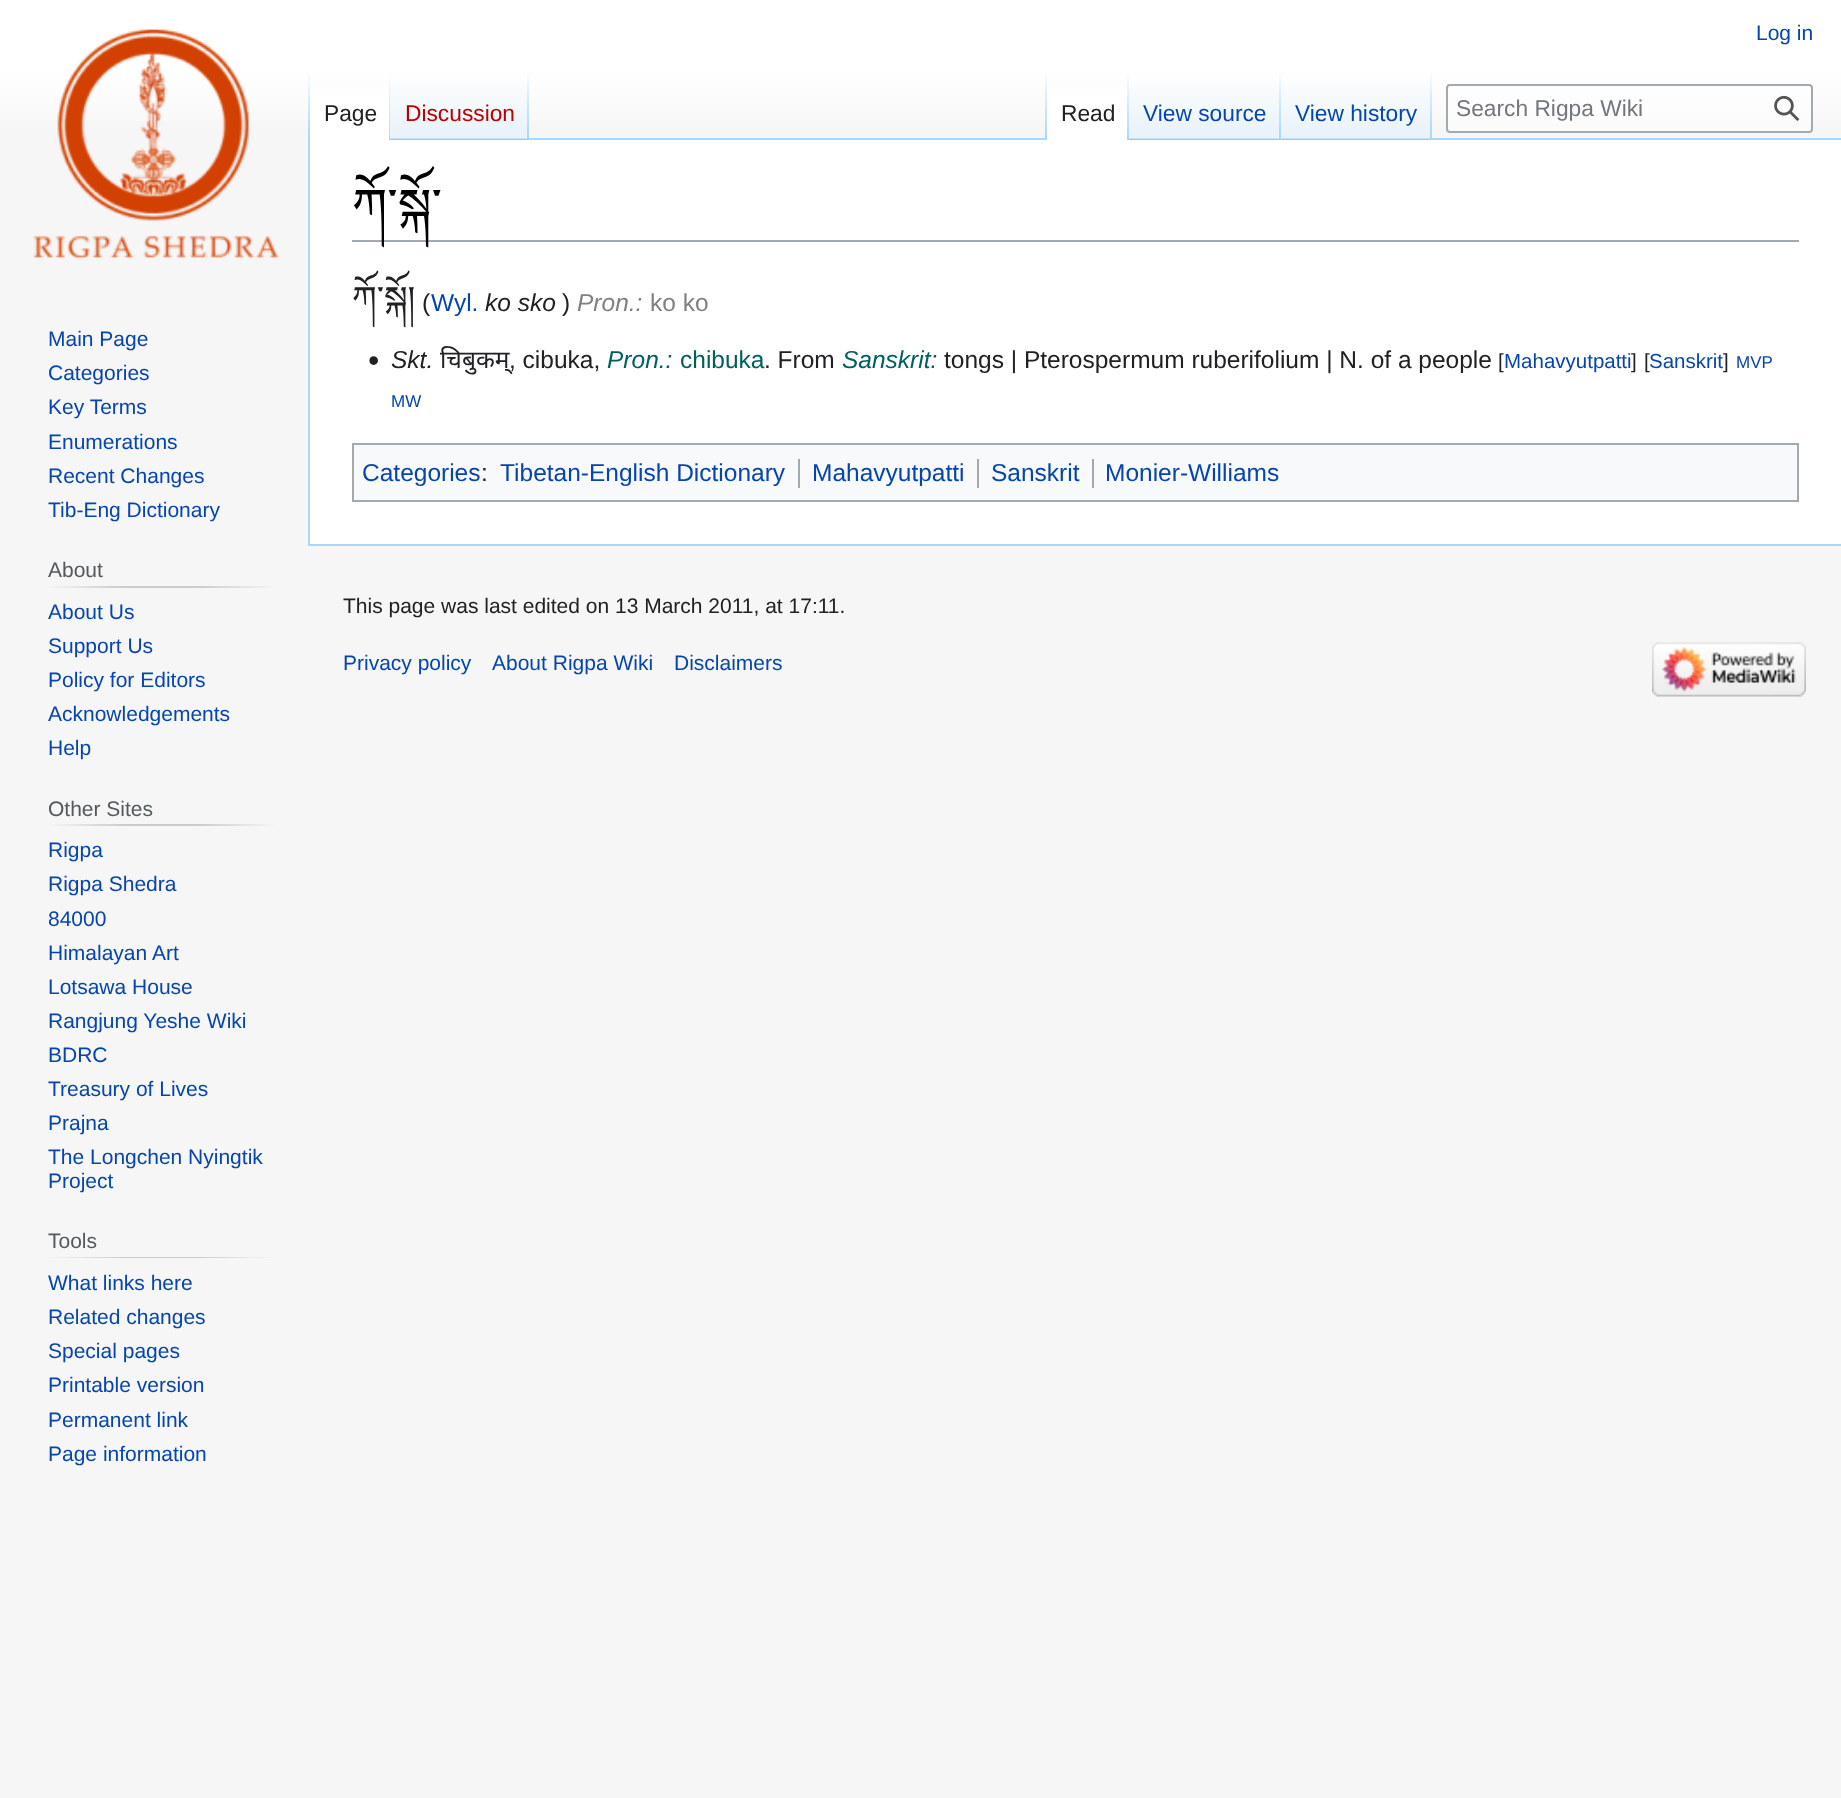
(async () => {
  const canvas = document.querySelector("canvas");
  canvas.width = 1841;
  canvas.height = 1798;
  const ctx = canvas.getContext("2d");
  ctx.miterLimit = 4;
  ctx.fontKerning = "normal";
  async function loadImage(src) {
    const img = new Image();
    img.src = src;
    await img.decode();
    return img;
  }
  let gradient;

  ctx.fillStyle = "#f6f6f6";
  ctx.fillRect(0, 0, 1841, 1798);
  gradient = ctx.createLinearGradient(921, 0, 921, 140);
  gradient.addColorStop(0.5, "#ffffff");
  gradient.addColorStop(1, "#f6f6f6");
  ctx.fillStyle = gradient;
  ctx.fillRect(0, 0, 1841, 121);
  ctx.fillStyle = "#a7d7f9";
  ctx.fillRect(308, 544, 1533, 2);
  ctx.fillRect(308, 138, 2, 408);
  gradient = ctx.createLinearGradient(309, 70, 309, 140);
  gradient.addColorStop(0, "rgba(167, 215, 249, 0)");
  gradient.addColorStop(1, "#a7d7f9");
  ctx.fillStyle = gradient;
  ctx.fillRect(308, 70, 2, 70);
  ctx.fillStyle = "#ffffff";
  ctx.fillRect(310, 89, 79, 51);
  gradient = ctx.createLinearGradient(389, 70, 389, 140);
  gradient.addColorStop(0, "#ffffff");
  gradient.addColorStop(1, "#a7d7f9");
  ctx.fillStyle = gradient;
  ctx.fillRect(389, 70, 1, 70);
  gradient = ctx.createLinearGradient(459, 140, 459, 70);
  gradient.addColorStop(0, "#77c1f6");
  gradient.addColorStop(0.03, "#e8f2f8");
  gradient.addColorStop(1, "#ffffff");
  ctx.fillStyle = gradient;
  ctx.fillRect(390, 80, 139, 60);
  gradient = ctx.createLinearGradient(528, 70, 528, 140);
  gradient.addColorStop(0, "rgba(167, 215, 249, 0)");
  gradient.addColorStop(1, "#a7d7f9");
  ctx.fillStyle = gradient;
  ctx.fillRect(527, 70, 2, 70);
  ctx.fillStyle = "#a7d7f9";
  ctx.fillRect(529, 138, 1312, 2);
  gradient = ctx.createLinearGradient(1046, 70, 1046, 140);
  gradient.addColorStop(0, "rgba(167, 215, 249, 0)");
  gradient.addColorStop(1, "#a7d7f9");
  ctx.fillStyle = gradient;
  ctx.fillRect(1045, 70, 2, 70);
  ctx.fillStyle = "#ffffff";
  ctx.fillRect(1047, 89, 80, 51);
  gradient = ctx.createLinearGradient(1128, 70, 1128, 140);
  gradient.addColorStop(0, "#ffffff");
  gradient.addColorStop(1, "#a7d7f9");
  ctx.fillStyle = gradient;
  ctx.fillRect(1127, 70, 2, 70);
  gradient = ctx.createLinearGradient(1205, 140, 1205, 70);
  gradient.addColorStop(0, "#77c1f6");
  gradient.addColorStop(0.03, "#e8f2f8");
  gradient.addColorStop(1, "#ffffff");
  ctx.fillStyle = gradient;
  ctx.fillRect(1129, 80, 152, 60);
  gradient = ctx.createLinearGradient(1280, 70, 1280, 140);
  gradient.addColorStop(0, "rgba(167, 215, 249, 0)");
  gradient.addColorStop(1, "#a7d7f9");
  ctx.fillStyle = gradient;
  ctx.fillRect(1279, 70, 2, 70);
  gradient = ctx.createLinearGradient(1356, 140, 1356, 70);
  gradient.addColorStop(0, "#77c1f6");
  gradient.addColorStop(0.03, "#e8f2f8");
  gradient.addColorStop(1, "#ffffff");
  ctx.fillStyle = gradient;
  ctx.fillRect(1281, 80, 151, 60);
  gradient = ctx.createLinearGradient(1431, 70, 1431, 140);
  gradient.addColorStop(0, "rgba(167, 215, 249, 0)");
  gradient.addColorStop(1, "#a7d7f9");
  ctx.fillStyle = gradient;
  ctx.fillRect(1430, 70, 2, 70);
  ctx.fillStyle = "rgba(255, 255, 255, 0.5)";
  ctx.beginPath();
  ctx.roundRect(1447, 85, 365, 47, 3);
  ctx.fill();
  ctx.strokeStyle = "#a2a9b1";
  ctx.lineWidth = 2;
  ctx.stroke();
  ctx.drawImage(await loadImage("img/1.png"), 1774, 95, 26, 26);
  ctx.drawImage(await loadImage("img/2.png"), 33, 29, 246, 231);
  gradient = ctx.createLinearGradient(47, 587, 277, 587);
  gradient.addColorStop(0, "#f6f6f6");
  gradient.addColorStop(0.33, "#c8ccd1");
  gradient.addColorStop(0.66, "#c8ccd1");
  gradient.addColorStop(1, "#f6f6f6");
  ctx.fillStyle = gradient;
  ctx.fillRect(47, 586, 230, 2);
  gradient = ctx.createLinearGradient(47, 825, 277, 825);
  gradient.addColorStop(0, "#f6f6f6");
  gradient.addColorStop(0.33, "#c8ccd1");
  gradient.addColorStop(0.66, "#c8ccd1");
  gradient.addColorStop(1, "#f6f6f6");
  ctx.fillStyle = gradient;
  ctx.fillRect(47, 824, 230, 2);
  gradient = ctx.createLinearGradient(47, 1257, 277, 1257);
  gradient.addColorStop(0, "#f6f6f6");
  gradient.addColorStop(0.33, "#c8ccd1");
  gradient.addColorStop(0.66, "#c8ccd1");
  gradient.addColorStop(1, "#f6f6f6");
  ctx.fillStyle = gradient;
  ctx.fillRect(47, 1257, 230, 1);
  ctx.fillStyle = "#ffffff";
  ctx.fillRect(310, 140, 1531, 404);
  ctx.fillStyle = "#a2a9b1";
  ctx.fillRect(352, 240, 1447, 2);
  ctx.drawImage(await loadImage("img/3.png"), 369, 356, 9, 9);
  ctx.fillStyle = "#f8f9fa";
  ctx.beginPath();
  ctx.rect(353, 444, 1445, 57);
  ctx.fill();
  ctx.stroke();
  for (const [x, y, w, h, color] of [
    [798, 459, 2, 29, "#a2a9b1"],
    [977, 459, 2, 29, "#a2a9b1"],
    [1092, 459, 2, 29, "#a2a9b1"],
  ]) {
    ctx.fillStyle = color;
    ctx.fillRect(x, y, w, h);
  }
  ctx.drawImage(await loadImage("img/4.png"), 1652, 642, 154, 55);
  ctx.font = "21px Liberation Sans";
  ctx.fillStyle = "#0645ad";
  ctx.fillText("Log in", 1756, 40);
  ctx.font = "22.75px Liberation Sans";
  ctx.fillStyle = "#202122";
  ctx.fillText("Page", 324, 121);
  ctx.fillStyle = "#ba0000";
  ctx.fillText("Discussion", 405, 121);
  ctx.fillStyle = "#202122";
  ctx.fillText("Read", 1061, 121);
  ctx.fillStyle = "#0645ad";
  ctx.fillText("View source", 1143, 121);
  ctx.fillText("View history", 1295, 121);
  ctx.fillStyle = "#72777d";
  ctx.fillText("Search Rigpa Wiki", 1456, 116);
  ctx.font = "21px Liberation Sans";
  ctx.fillStyle = "#0645ad";
  for (const [text, x, y] of [
    ["Main Page", 48, 346],
    ["Categories", 48, 380],
    ["Key Terms", 48, 414],
    ["Enumerations", 48, 449],
    ["Recent Changes", 48, 483],
    ["Tib-Eng Dictionary", 48, 517],
  ]) {
    ctx.fillText(text, x, y);
  }
  ctx.fillStyle = "#54595d";
  ctx.fillText("About", 48, 577);
  ctx.fillStyle = "#0645ad";
  for (const [text, x, y] of [
    ["About Us", 48, 619],
    ["Support Us", 48, 653],
    ["Policy for Editors", 48, 687],
    ["Acknowledgements", 48, 721],
    ["Help", 48, 755],
  ]) {
    ctx.fillText(text, x, y);
  }
  ctx.fillStyle = "#54595d";
  ctx.fillText("Other Sites", 48, 816);
  ctx.fillStyle = "#0645ad";
  for (const [text, x, y] of [
    ["Rigpa", 48, 857],
    ["Rigpa Shedra", 48, 891],
    ["84000", 48, 926],
    ["Himalayan Art", 48, 960],
    ["Lotsawa House", 48, 994],
    ["Rangjung Yeshe Wiki", 48, 1028],
    ["BDRC", 48, 1062],
    ["Treasury of Lives", 48, 1096],
    ["Prajna", 48, 1130],
    ["The Longchen Nyingtik", 48, 1164],
    ["Project", 48, 1188],
  ]) {
    ctx.fillText(text, x, y);
  }
  ctx.fillStyle = "#54595d";
  ctx.fillText("Tools", 48, 1248);
  ctx.fillStyle = "#0645ad";
  for (const [text, x, y] of [
    ["What links here", 48, 1290],
    ["Related changes", 48, 1324],
    ["Special pages", 48, 1358],
    ["Printable version", 48, 1392],
    ["Permanent link", 48, 1427],
    ["Page information", 48, 1461],
  ]) {
    ctx.fillText(text, x, y);
  }
  ctx.font = "50px Noto Serif Tibetan";
  ctx.fillStyle = "#000000";
  ctx.fillText("ཀོ་སྐོ་", 352, 224);
  ctx.font = "35px Noto Serif Tibetan";
  ctx.fillStyle = "#202122";
  ctx.fillText("ཀོ་སྐོ།", 352, 311);
  ctx.font = "24.5px Liberation Sans";
  ctx.fillText("(", 422, 311);
  ctx.fillStyle = "#0645ad";
  ctx.fillText("Wyl.", 431, 311);
  ctx.font = "italic 24.5px Liberation Sans";
  ctx.fillStyle = "#202122";
  ctx.fillText("ko sko", 485, 311);
  ctx.font = "24.5px Liberation Sans";
  ctx.fillText(")", 562, 311);
  ctx.font = "italic 24.5px Liberation Sans";
  ctx.fillStyle = "#808080";
  ctx.fillText("Pron.:", 577, 311);
  ctx.font = "24.5px Liberation Sans";
  ctx.fillText("ko ko", 650, 311);
  ctx.font = "italic 24.5px Liberation Sans";
  ctx.fillStyle = "#202122";
  ctx.fillText("Skt.", 391, 368);
  ctx.font = "24.5px Noto Sans";
  ctx.fillText("चिबुकम्", 440, 368);
  ctx.font = "24.5px Liberation Sans";
  ctx.fillText(", cibuka,", 509, 368);
  ctx.font = "italic 24.5px Liberation Sans";
  ctx.fillStyle = "#006060";
  ctx.fillText("Pron.:", 607, 368);
  ctx.font = "24.5px Liberation Sans";
  ctx.fillText("chibuka", 680, 368);
  ctx.fillStyle = "#202122";
  ctx.fillText(". From", 764, 368);
  ctx.font = "italic 24.5px Liberation Sans";
  ctx.fillStyle = "#006060";
  ctx.fillText("Sanskrit:", 842, 368);
  ctx.font = "24.5px Liberation Sans";
  ctx.fillStyle = "#202122";
  ctx.fillText("tongs | Pterospermum ruberifolium | N. of a people", 944, 368);
  ctx.font = "20.5px Liberation Sans";
  ctx.fillText("[", 1498, 368);
  ctx.fillStyle = "#0645ad";
  ctx.fillText("Mahavyutpatti", 1504, 368);
  ctx.fillStyle = "#202122";
  ctx.fillText("]", 1631, 368);
  ctx.fillText("[", 1644, 368);
  ctx.fillStyle = "#0645ad";
  ctx.fillText("Sanskrit", 1649, 368);
  ctx.fillStyle = "#202122";
  ctx.fillText("]", 1723, 368);
  ctx.font = "17px Liberation Sans";
  ctx.fillStyle = "#0645ad";
  ctx.fillText("MVP", 1736, 368);
  ctx.fillText("MW", 391, 407);
  ctx.font = "24.5px Liberation Sans";
  ctx.fillText("Categories", 362, 481);
  ctx.fillStyle = "#202122";
  ctx.fillText(":", 481, 481);
  ctx.fillStyle = "#0645ad";
  for (const [text, x, y] of [
    ["Tibetan-English Dictionary", 500, 481],
    ["Mahavyutpatti", 812, 481],
    ["Sanskrit", 991, 481],
    ["Monier-Williams", 1105, 481],
  ]) {
    ctx.fillText(text, x, y);
  }
  ctx.font = "21px Liberation Sans";
  ctx.fillStyle = "#202122";
  ctx.fillText("This page was last edited on 13 March 2011, at 17:11.", 343, 613);
  ctx.fillStyle = "#0645ad";
  for (const [text, x, y] of [
    ["Privacy policy", 343, 670],
    ["About Rigpa Wiki", 492, 670],
    ["Disclaimers", 674, 670],
  ]) {
    ctx.fillText(text, x, y);
  }
})();
